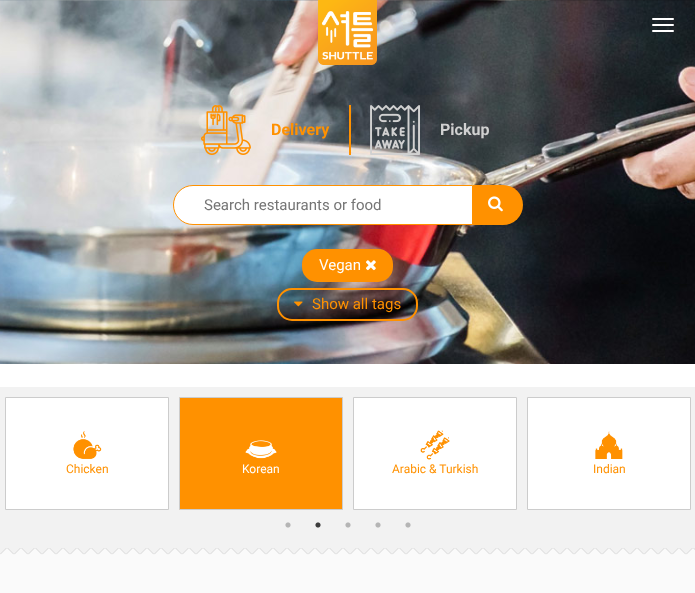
(async () => {
  const canvas = document.querySelector("canvas");
  canvas.width = 695;
  canvas.height = 593;
  const ctx = canvas.getContext("2d");
  ctx.miterLimit = 4;
  ctx.fontKerning = "normal";
  async function loadImage(src) {
    const img = new Image();
    img.src = src;
    await img.decode();
    return img;
  }

  ctx.fillStyle = "#ffffff";
  ctx.fillRect(0, 0, 695, 593);
  ctx.drawImage(await loadImage("img/1.png"), 0, 0, 695, 364);
  ctx.beginPath();
  ctx.roundRect(652, 18, 22, 2, 1);
  ctx.fill();
  ctx.beginPath();
  ctx.roundRect(652, 24, 22, 2, 1);
  ctx.fill();
  ctx.beginPath();
  ctx.roundRect(652, 30, 22, 2, 1);
  ctx.fill();
  ctx.drawImage(await loadImage("img/2.png"), 318, 0, 59, 65);
  ctx.fillStyle = "#ff9100";
  ctx.fillRect(349, 105, 2, 50);
  ctx.drawImage(await loadImage("img/3.png"), 201, 105, 50, 50);
  ctx.drawImage(await loadImage("img/4.png"), 370, 105, 50, 50);
  ctx.fillStyle = "#ffffff";
  ctx.beginPath();
  ctx.roundRect(173.5, 185.5, 299, 39, [19.5, 0, 0, 19.5]);
  ctx.fill();
  ctx.strokeStyle = "#ff9100";
  ctx.stroke();
  ctx.fillStyle = "#ff9100";
  ctx.beginPath();
  ctx.roundRect(473, 185, 50, 40, [0, 20, 20, 0]);
  ctx.fill();
  ctx.drawImage(await loadImage("img/5.png"), 488, 196, 15, 16);
  ctx.beginPath();
  ctx.roundRect(303, 250, 89, 31, 14);
  ctx.fill();
  ctx.lineWidth = 2;
  ctx.stroke();
  ctx.drawImage(await loadImage("img/6.png"), 366, 260, 10, 11);
  ctx.beginPath();
  ctx.roundRect(278, 289, 139, 31, 14);
  ctx.stroke();
  ctx.drawImage(await loadImage("img/7.png"), 294, 301, 9, 6);
  ctx.fillStyle = "#f2f2f2";
  ctx.fillRect(0, 387, 695, 168);
  ctx.fillStyle = "#ffffff";
  ctx.beginPath();
  ctx.rect(5.5, 397.5, 163, 112);
  ctx.fill();
  ctx.strokeStyle = "#cccccc";
  ctx.lineWidth = 1;
  ctx.stroke();
  ctx.drawImage(await loadImage("img/8.png"), 73, 431, 29, 28);
  ctx.fillStyle = "#ff9100";
  ctx.beginPath();
  ctx.rect(179.5, 397.5, 163, 112);
  ctx.fill();
  ctx.stroke();
  ctx.drawImage(await loadImage("img/9.png"), 245, 440, 32, 19);
  ctx.fillStyle = "#ffffff";
  ctx.beginPath();
  ctx.rect(353.5, 397.5, 163, 112);
  ctx.fill();
  ctx.stroke();
  ctx.drawImage(await loadImage("img/10.png"), 420, 430, 30, 30);
  ctx.beginPath();
  ctx.rect(527.5, 397.5, 163, 112);
  ctx.fill();
  ctx.stroke();
  ctx.drawImage(await loadImage("img/11.png"), 595, 431, 28, 28);
  ctx.drawImage(await loadImage("img/12.png"), 285, 522, 6, 6);
  ctx.drawImage(await loadImage("img/13.png"), 315, 522, 6, 6);
  ctx.drawImage(await loadImage("img/12.png"), 345, 522, 6, 6);
  ctx.drawImage(await loadImage("img/12.png"), 375, 522, 6, 6);
  ctx.drawImage(await loadImage("img/12.png"), 405, 522, 6, 6);
  ctx.drawImage(await loadImage("img/14.png"), 0, 548, 695, 7);
  ctx.fillStyle = "#fafafa";
  ctx.fillRect(0, 555, 695, 38);
  ctx.font = "bold 16px Roboto";
  ctx.fillStyle = "#ff9100";
  ctx.fillText("Delivery", 271, 135);
  ctx.fillStyle = "#d1d1d1";
  ctx.fillText("Pickup", 440, 135);
  ctx.font = "15px Roboto";
  ctx.fillStyle = "#757575";
  ctx.fillText("Search restaurants or food", 204, 210);
  ctx.fillStyle = "#ffffff";
  ctx.fillText("Vegan", 319, 270);
  ctx.fillStyle = "#ff9100";
  ctx.fillText("Show all tags", 312, 309);
  ctx.font = "12px Roboto";
  ctx.fillText("Chicken", 66, 473);
  ctx.fillStyle = "#ffffff";
  ctx.fillText("Korean", 242, 473);
  ctx.fillStyle = "#ff9100";
  ctx.fillText("Arabic & Turkish", 392, 473);
  ctx.fillText("Indian", 593, 473);
})();
